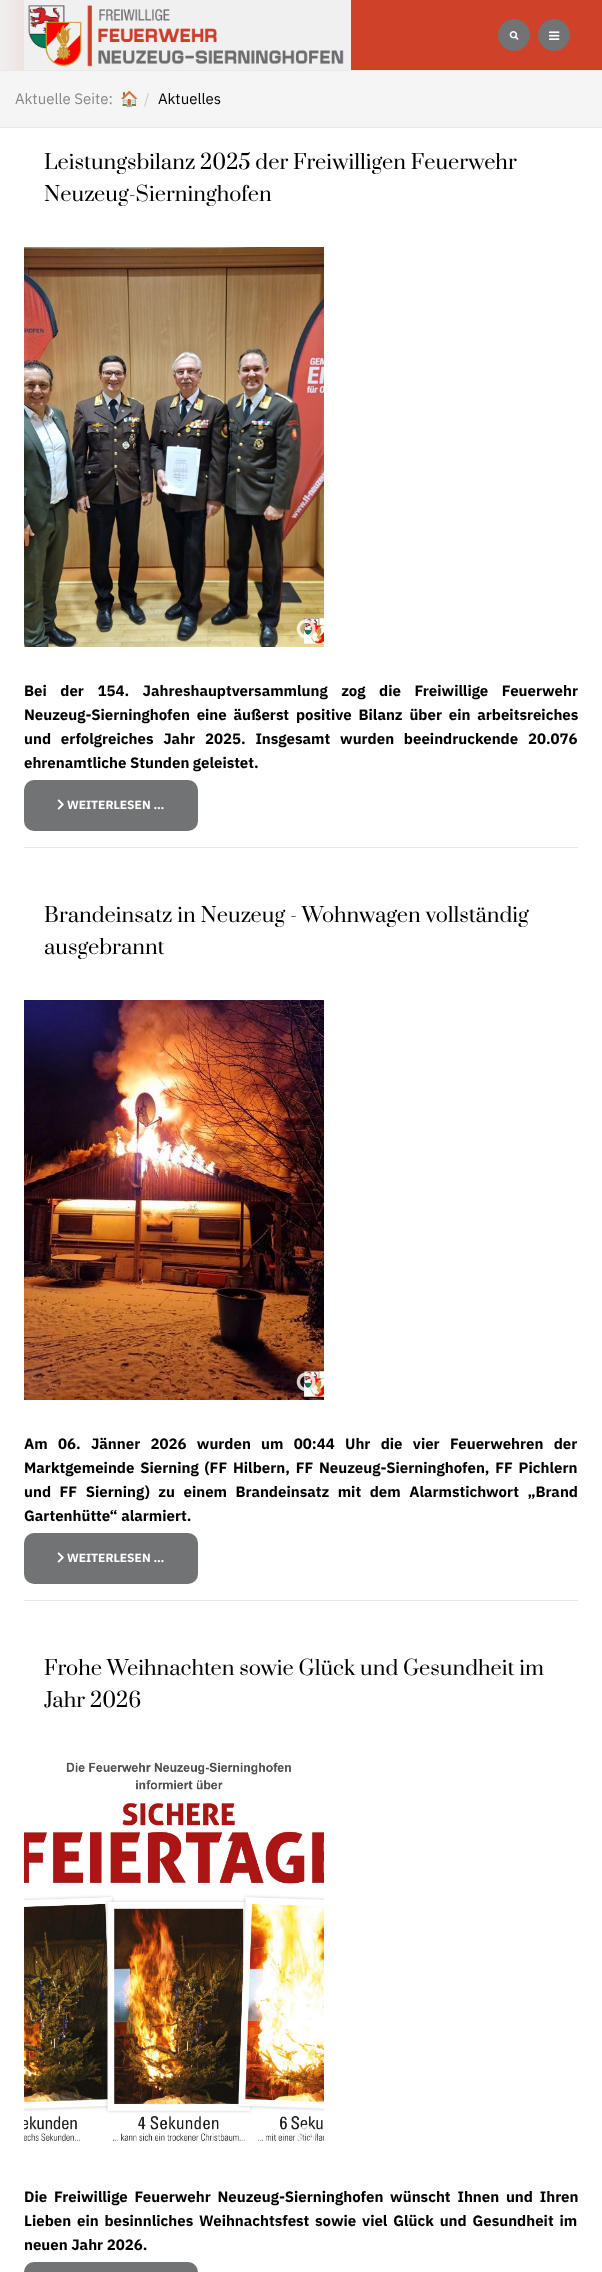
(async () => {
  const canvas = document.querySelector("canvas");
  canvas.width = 602;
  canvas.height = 2272;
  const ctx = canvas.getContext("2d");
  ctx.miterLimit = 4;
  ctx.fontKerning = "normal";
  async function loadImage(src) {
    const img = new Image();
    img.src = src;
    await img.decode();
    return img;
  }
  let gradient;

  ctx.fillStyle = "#ffffff";
  ctx.fillRect(0, 0, 602, 2272);
  gradient = ctx.createLinearGradient(0, 35, 602, 35);
  gradient.addColorStop(0, "#f0f0f0");
  gradient.addColorStop(0.5, "#cf4128");
  ctx.fillStyle = gradient;
  ctx.fillRect(0, 0, 602, 70);
  ctx.fillStyle = "#e8e8e8";
  ctx.fillRect(0, 70, 602, 1);
  ctx.fillStyle = "#f0f0f0";
  ctx.fillRect(24, 0, 327, 70);
  ctx.drawImage(await loadImage("img/1.png"), 28, 5, 316, 62);
  ctx.fillStyle = "#727375";
  ctx.beginPath();
  ctx.arc(514, 35, 16, 0, Math.PI * 2);
  ctx.fill();
  ctx.drawImage(await loadImage("img/2.png"), 509, 31, 10, 9);
  ctx.beginPath();
  ctx.arc(554, 35, 16, 0, Math.PI * 2);
  ctx.fill();
  ctx.drawImage(await loadImage("img/3.png"), 549, 31, 11, 9);
  for (const [x, y, w, h, color] of [
    [0, 127, 602, 1, "#e8e8e8"],
    [0, 71, 602, 56, "#f5f5f5"],
    [24, 847, 554, 1, "#e8e8e8"],
  ]) {
    ctx.fillStyle = color;
    ctx.fillRect(x, y, w, h);
  }
  ctx.drawImage(await loadImage("img/4.png"), 24, 247, 300, 400);
  ctx.drawImage(await loadImage("img/5.png"), 296, 619, 23, 23);
  ctx.fillStyle = "#727375";
  ctx.beginPath();
  ctx.roundRect(24, 780, 174, 51, 10);
  ctx.fill();
  ctx.drawImage(await loadImage("img/6.png"), 57, 799, 7, 11);
  ctx.fillStyle = "#e8e8e8";
  ctx.fillRect(24, 1600, 554, 1);
  ctx.drawImage(await loadImage("img/7.png"), 24, 1000, 300, 400);
  ctx.drawImage(await loadImage("img/8.png"), 296, 1372, 23, 23);
  ctx.fillStyle = "#727375";
  ctx.beginPath();
  ctx.roundRect(24, 1533, 174, 51, 10);
  ctx.fill();
  ctx.drawImage(await loadImage("img/6.png"), 57, 1552, 7, 11);
  ctx.drawImage(await loadImage("img/9.png"), 24, 1762, 300, 379);
  ctx.drawImage(await loadImage("img/10.png"), 297, 2126, 19, 15);
  ctx.beginPath();
  ctx.roundRect(24, 2262, 174, 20, 10);
  ctx.fill();
  ctx.font = "15px IBM Plex Sans";
  ctx.fillStyle = "#888888";
  ctx.fillText("Aktuelle Seite:", 15, 104);
  ctx.font = "15px Noto Color Emoji";
  ctx.fillStyle = "#333333";
  ctx.fillText("🏠", 120, 104);
  ctx.font = "15px IBM Plex Sans";
  ctx.fillStyle = "#cccccc";
  ctx.fillText("/", 144, 104);
  ctx.fillStyle = "#000000";
  ctx.fillText("Aktuelles", 158, 104);
  ctx.font = "20px Prata";
  ctx.fillText("Leistungsbilanz 2025 der Freiwilligen Feuerwehr", 44, 169);
  ctx.fillText("Neuzeug-Sierninghofen", 44, 201);
  ctx.wordSpacing = "10px";
  ctx.font = "bold 15px IBM Plex Sans";
  ctx.fillText("Bei der 154. Jahreshauptversammlung zog die Freiwillige Feuerwehr", 24, 696);
  ctx.wordSpacing = "3.25px";
  ctx.fillText("Neuzeug-Sierninghofen eine äußerst positive Bilanz über ein arbeitsreiches", 24, 720);
  ctx.wordSpacing = "6.25px";
  ctx.fillText("und erfolgreiches Jahr 2025. Insgesamt wurden beeindruckende 20.076", 24, 744);
  ctx.wordSpacing = "0px";
  ctx.fillText("ehrenamtliche Stunden geleistet.", 24, 768);
  ctx.font = "bold 12px IBM Plex Sans";
  ctx.fillStyle = "#ffffff";
  ctx.fillText("WEITERLESEN …", 67, 809);
  ctx.font = "20px Prata";
  ctx.fillStyle = "#000000";
  ctx.fillText("Brandeinsatz in Neuzeug - Wohnwagen vollständig", 44, 922);
  ctx.fillText("ausgebrannt", 44, 954);
  ctx.wordSpacing = "6.75px";
  ctx.font = "bold 15px IBM Plex Sans";
  ctx.fillText("Am 06. Jänner 2026 wurden um 00:44 Uhr die vier Feuerwehren der", 24, 1449);
  ctx.wordSpacing = "2.25px";
  ctx.fillText("Marktgemeinde Sierning (FF Hilbern, FF Neuzeug-Sierninghofen, FF Pichlern", 24, 1473);
  ctx.wordSpacing = "5px";
  ctx.fillText("und FF Sierning) zu einem Brandeinsatz mit dem Alarmstichwort „Brand", 24, 1497);
  ctx.wordSpacing = "0px";
  ctx.fillText("Gartenhütte“ alarmiert.", 24, 1521);
  ctx.font = "bold 12px IBM Plex Sans";
  ctx.fillStyle = "#ffffff";
  ctx.fillText("WEITERLESEN …", 67, 1562);
  ctx.font = "20px Prata";
  ctx.fillStyle = "#000000";
  ctx.fillText("Frohe Weihnachten sowie Glück und Gesundheit im", 44, 1675);
  ctx.fillText("Jahr 2026", 44, 1707);
  ctx.wordSpacing = "3.25px";
  ctx.font = "bold 15px IBM Plex Sans";
  ctx.fillText("Die Freiwillige Feuerwehr Neuzeug-Sierninghofen wünscht Ihnen und Ihren", 24, 2202);
  ctx.wordSpacing = "2.25px";
  ctx.fillText("Lieben ein besinnliches Weihnachtsfest sowie viel Glück und Gesundheit im", 24, 2226);
  ctx.wordSpacing = "0px";
  ctx.fillText("neuen Jahr 2026.", 24, 2250);
})();
